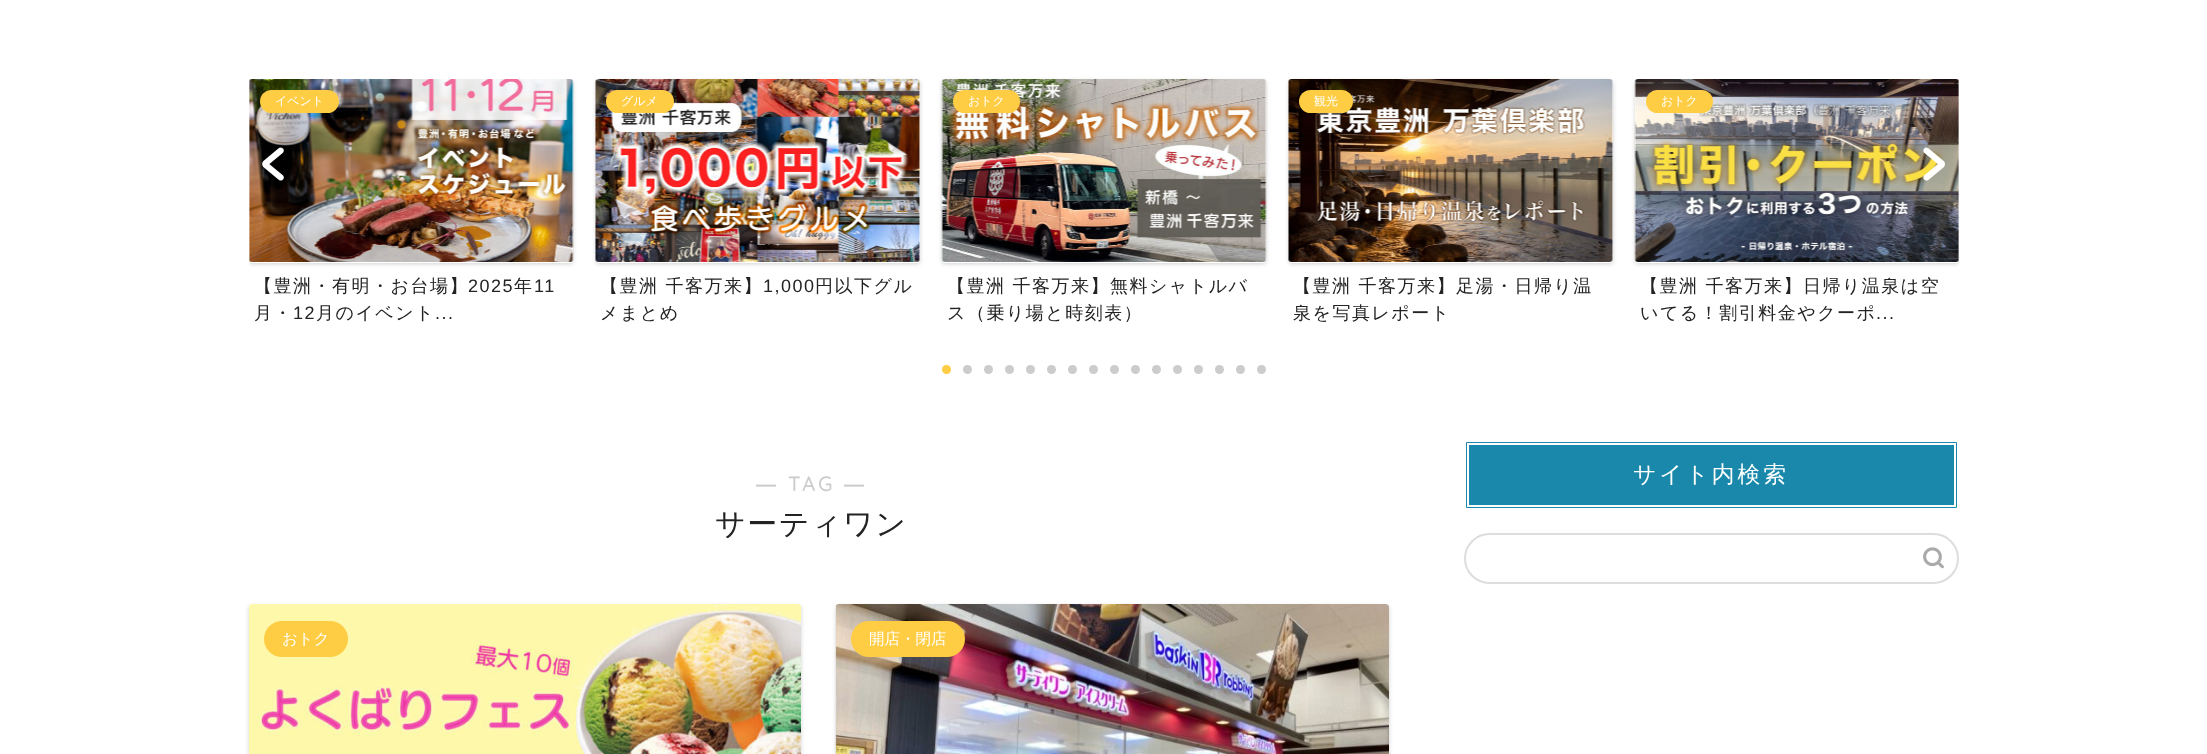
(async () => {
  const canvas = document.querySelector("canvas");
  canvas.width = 2207;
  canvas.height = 754;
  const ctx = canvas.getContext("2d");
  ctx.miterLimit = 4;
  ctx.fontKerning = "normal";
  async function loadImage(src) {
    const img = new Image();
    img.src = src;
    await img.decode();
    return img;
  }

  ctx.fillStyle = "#ffffff";
  ctx.fillRect(0, 0, 2207, 754);
  ctx.save();
  ctx.beginPath();
  ctx.rect(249, 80, 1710, 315);
  ctx.clip();
  ctx.fillStyle = "rgba(0, 0, 0, 0.18)";
  ctx.filter = "blur(2px)";
  ctx.beginPath();
  ctx.roundRect(249, 81, 324, 183, 3);
  ctx.fill();
  ctx.filter = "none";
  ctx.restore();
  ctx.beginPath();
  ctx.roundRect(249, 80, 324, 183, 3);
  ctx.fill();
  ctx.drawImage(await loadImage("img/1.png"), 249, 79, 325, 183);
  ctx.fillStyle = "#ffcd44";
  ctx.beginPath();
  ctx.roundRect(260, 90, 79, 23, 11.5);
  ctx.fill();
  ctx.fillStyle = "rgba(0, 0, 0, 0.18)";
  ctx.filter = "blur(2px)";
  ctx.beginPath();
  ctx.roundRect(596, 81, 324, 183, 3);
  ctx.fill();
  ctx.filter = "none";
  ctx.fillStyle = "#ffffff";
  ctx.beginPath();
  ctx.roundRect(596, 80, 324, 183, 3);
  ctx.fill();
  ctx.drawImage(await loadImage("img/2.png"), 595, 79, 325, 183);
  ctx.fillStyle = "#ffcd44";
  ctx.beginPath();
  ctx.roundRect(606, 90, 68, 23, 11.5);
  ctx.fill();
  ctx.fillStyle = "rgba(0, 0, 0, 0.18)";
  ctx.filter = "blur(2px)";
  ctx.beginPath();
  ctx.roundRect(942, 81, 324, 183, 3);
  ctx.fill();
  ctx.filter = "none";
  ctx.fillStyle = "#ffffff";
  ctx.beginPath();
  ctx.roundRect(942, 80, 324, 183, 3);
  ctx.fill();
  ctx.drawImage(await loadImage("img/3.png"), 941, 79, 326, 183);
  ctx.fillStyle = "#ffcd44";
  ctx.beginPath();
  ctx.roundRect(953, 90, 67, 23, 11.5);
  ctx.fill();
  ctx.fillStyle = "rgba(0, 0, 0, 0.18)";
  ctx.filter = "blur(2px)";
  ctx.beginPath();
  ctx.roundRect(1289, 81, 324, 183, 3);
  ctx.fill();
  ctx.filter = "none";
  ctx.fillStyle = "#ffffff";
  ctx.beginPath();
  ctx.roundRect(1289, 80, 324, 183, 3);
  ctx.fill();
  ctx.drawImage(await loadImage("img/4.png"), 1288, 79, 325, 183);
  ctx.fillStyle = "#ffcd44";
  ctx.beginPath();
  ctx.roundRect(1299, 90, 54, 23, 11.5);
  ctx.fill();
  ctx.save();
  ctx.beginPath();
  ctx.rect(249, 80, 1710, 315);
  ctx.clip();
  ctx.fillStyle = "rgba(0, 0, 0, 0.18)";
  ctx.filter = "blur(2px)";
  ctx.beginPath();
  ctx.roundRect(1635, 81, 324, 183, 3);
  ctx.fill();
  ctx.filter = "none";
  ctx.restore();
  ctx.fillStyle = "#ffffff";
  ctx.beginPath();
  ctx.roundRect(1635, 80, 324, 183, 3);
  ctx.fill();
  ctx.drawImage(await loadImage("img/5.png"), 1634, 79, 325, 183);
  ctx.fillStyle = "#ffcd44";
  ctx.beginPath();
  ctx.roundRect(1646, 90, 67, 23, 11.5);
  ctx.fill();
  ctx.drawImage(await loadImage("img/6.png"), 262, 147, 22, 34);
  ctx.drawImage(await loadImage("img/7.png"), 1923, 147, 22, 34);
  ctx.beginPath();
  ctx.arc(946.5, 369.5, 4.5, 0, Math.PI * 2);
  ctx.fill();
  ctx.fillStyle = "#cccccc";
  ctx.beginPath();
  ctx.arc(967.5, 369.5, 4.5, 0, Math.PI * 2);
  ctx.fill();
  ctx.beginPath();
  ctx.arc(988.5, 369.5, 4.5, 0, Math.PI * 2);
  ctx.fill();
  ctx.beginPath();
  ctx.arc(1009.5, 369.5, 4.5, 0, Math.PI * 2);
  ctx.fill();
  ctx.beginPath();
  ctx.arc(1030.5, 369.5, 4.5, 0, Math.PI * 2);
  ctx.fill();
  ctx.beginPath();
  ctx.arc(1051.5, 369.5, 4.5, 0, Math.PI * 2);
  ctx.fill();
  ctx.beginPath();
  ctx.arc(1072.5, 369.5, 4.5, 0, Math.PI * 2);
  ctx.fill();
  ctx.beginPath();
  ctx.arc(1093.5, 369.5, 4.5, 0, Math.PI * 2);
  ctx.fill();
  ctx.beginPath();
  ctx.arc(1114.5, 369.5, 4.5, 0, Math.PI * 2);
  ctx.fill();
  ctx.beginPath();
  ctx.arc(1135.5, 369.5, 4.5, 0, Math.PI * 2);
  ctx.fill();
  ctx.beginPath();
  ctx.arc(1156.5, 369.5, 4.5, 0, Math.PI * 2);
  ctx.fill();
  ctx.beginPath();
  ctx.arc(1177.5, 369.5, 4.5, 0, Math.PI * 2);
  ctx.fill();
  ctx.beginPath();
  ctx.arc(1198.5, 369.5, 4.5, 0, Math.PI * 2);
  ctx.fill();
  ctx.beginPath();
  ctx.arc(1219.5, 369.5, 4.5, 0, Math.PI * 2);
  ctx.fill();
  ctx.beginPath();
  ctx.arc(1240.5, 369.5, 4.5, 0, Math.PI * 2);
  ctx.fill();
  ctx.beginPath();
  ctx.arc(1261.5, 369.5, 4.5, 0, Math.PI * 2);
  ctx.fill();
  ctx.fillStyle = "rgba(0, 0, 0, 0.18)";
  ctx.filter = "blur(2px)";
  ctx.beginPath();
  ctx.roundRect(249, 606, 552, 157, 3);
  ctx.fill();
  ctx.filter = "none";
  ctx.drawImage(await loadImage("img/8.png"), 249, 604, 552, 150);
  ctx.fillStyle = "#ffcd44";
  ctx.beginPath();
  ctx.roundRect(264, 621, 84, 36, 18);
  ctx.fill();
  ctx.fillStyle = "rgba(0, 0, 0, 0.18)";
  ctx.filter = "blur(2px)";
  ctx.beginPath();
  ctx.roundRect(836, 606, 553, 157, 3);
  ctx.fill();
  ctx.filter = "none";
  ctx.drawImage(await loadImage("img/9.png"), 835, 604, 554, 150);
  ctx.fillStyle = "#ffcd44";
  ctx.beginPath();
  ctx.roundRect(851, 621, 114, 36, 18);
  ctx.fill();
  ctx.fillStyle = "#1988aa";
  ctx.beginPath();
  ctx.roundRect(1465, 441, 493, 68, 2);
  ctx.fill();
  ctx.strokeStyle = "#ffffff";
  ctx.lineWidth = 2;
  ctx.stroke();
  ctx.strokeRect(1468, 444, 487, 62);
  ctx.beginPath();
  ctx.roundRect(1465, 534, 493, 49, 24.5);
  ctx.strokeStyle = "#dddddd";
  ctx.stroke();
  ctx.drawImage(await loadImage("img/10.png"), 1923, 547, 21, 22);
  ctx.font = "500 12px WenQuanYi Zen Hei";
  ctx.fillStyle = "#ffffff";
  ctx.fillText("イベント", 275, 105);
  ctx.letterSpacing = "1.5px";
  ctx.font = "500 18px WenQuanYi Zen Hei";
  ctx.fillStyle = "#232323";
  ctx.fillText("【豊洲・有明・お台場】", 254, 292);
  ctx.font = "18px Liberation Sans";
  ctx.fillText("2025", 468, 292);
  ctx.font = "500 18px WenQuanYi Zen Hei";
  ctx.fillText("年", 514, 292);
  ctx.font = "18px Liberation Sans";
  ctx.fillText("11", 534, 292);
  ctx.font = "500 18px WenQuanYi Zen Hei";
  ctx.fillText("月・", 254, 319);
  ctx.font = "18px Liberation Sans";
  ctx.fillText("12", 293, 319);
  ctx.font = "500 18px WenQuanYi Zen Hei";
  ctx.fillText("月のイベント", 316, 319);
  ctx.font = "18px Liberation Sans";
  ctx.fillText("...", 435, 319);
  ctx.letterSpacing = "0px";
  ctx.font = "500 12px WenQuanYi Zen Hei";
  ctx.fillStyle = "#ffffff";
  ctx.fillText("グルメ", 621, 105);
  ctx.letterSpacing = "1.5px";
  ctx.font = "500 18px WenQuanYi Zen Hei";
  ctx.fillStyle = "#232323";
  ctx.fillText("【豊洲 千客万来】", 600, 292);
  ctx.font = "18px Liberation Sans";
  ctx.fillText("1,000", 763, 292);
  ctx.font = "500 18px WenQuanYi Zen Hei";
  ctx.fillText("円以下グル", 815, 292);
  ctx.fillText("メまとめ", 600, 319);
  ctx.letterSpacing = "0px";
  ctx.font = "500 12px WenQuanYi Zen Hei";
  ctx.fillStyle = "#ffffff";
  ctx.fillText("おトク", 968, 105);
  ctx.letterSpacing = "1.5px";
  ctx.font = "500 18px WenQuanYi Zen Hei";
  ctx.fillStyle = "#232323";
  ctx.fillText("【豊洲 千客万来】無料シャトルバ", 947, 292);
  ctx.fillText("ス（乗り場と時刻表）", 947, 319);
  ctx.letterSpacing = "0px";
  ctx.font = "500 12px WenQuanYi Zen Hei";
  ctx.fillStyle = "#ffffff";
  ctx.fillText("観光", 1314, 105);
  ctx.letterSpacing = "1.5px";
  ctx.font = "500 18px WenQuanYi Zen Hei";
  ctx.fillStyle = "#232323";
  ctx.fillText("【豊洲 千客万来】足湯・日帰り温", 1293, 292);
  ctx.fillText("泉を写真レポート", 1293, 319);
  ctx.letterSpacing = "0px";
  ctx.font = "500 12px WenQuanYi Zen Hei";
  ctx.fillStyle = "#ffffff";
  ctx.fillText("おトク", 1661, 105);
  ctx.letterSpacing = "1.5px";
  ctx.font = "500 18px WenQuanYi Zen Hei";
  ctx.fillStyle = "#232323";
  ctx.fillText("【豊洲 千客万来】日帰り温泉は空", 1640, 292);
  ctx.fillText("いてる！割引料金やクーポ", 1640, 319);
  ctx.font = "18px Liberation Sans";
  ctx.fillText("...", 1876, 319);
  ctx.letterSpacing = "3px";
  ctx.font = "bold 20px Liberation Sans";
  ctx.fillStyle = "#cccccc";
  ctx.fillText("―", 756, 491);
  ctx.font = "bold 20px Quicksand";
  ctx.fillText("TAG", 788, 491);
  ctx.font = "bold 20px Liberation Sans";
  ctx.fillText("―", 844, 491);
  ctx.letterSpacing = "1.5px";
  ctx.font = "500 30px WenQuanYi Zen Hei";
  ctx.fillStyle = "#232323";
  ctx.fillText("サーティワン", 715, 534);
  ctx.letterSpacing = "0px";
  ctx.font = "500 15.5px WenQuanYi Zen Hei";
  ctx.fillStyle = "#ffffff";
  ctx.fillText("おトク", 282, 644);
  ctx.fillText("開店・閉店", 869, 644);
  ctx.letterSpacing = "3px";
  ctx.font = "500 22.75px WenQuanYi Zen Hei";
  ctx.fillText("サイト内検索", 1633, 482);
})();
